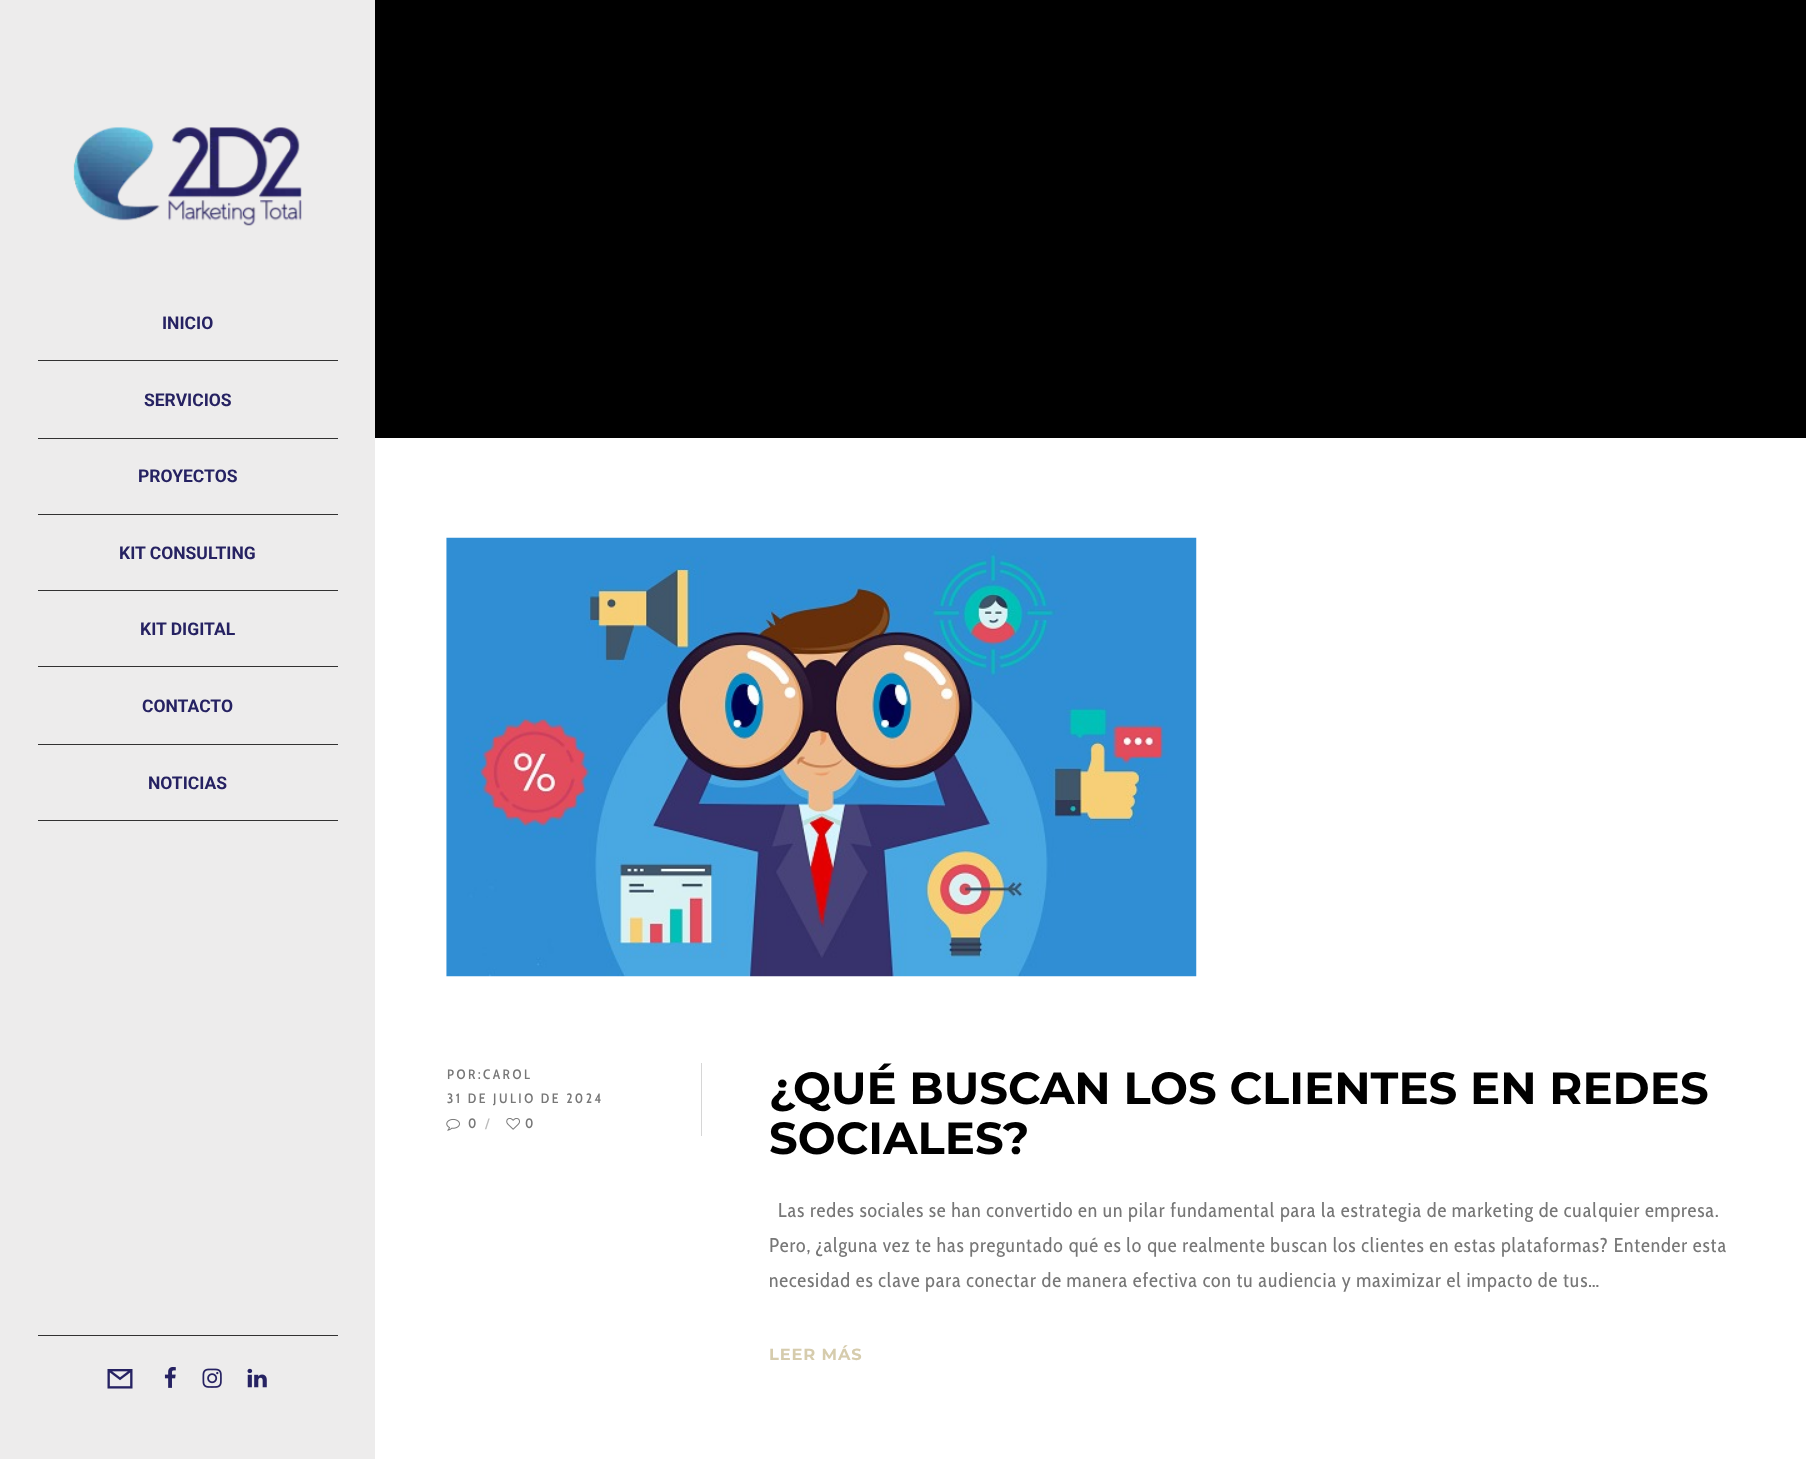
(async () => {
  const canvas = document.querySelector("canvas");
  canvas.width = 1806;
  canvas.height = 1459;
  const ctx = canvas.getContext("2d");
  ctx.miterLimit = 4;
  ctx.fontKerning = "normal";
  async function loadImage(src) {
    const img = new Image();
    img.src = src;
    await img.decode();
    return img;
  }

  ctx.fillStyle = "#ffffff";
  ctx.fillRect(0, 0, 1806, 1459);
  ctx.fillStyle = "#000000";
  ctx.fillRect(375, 0, 1431, 438);
  ctx.fillStyle = "#edecec";
  ctx.fillRect(0, 0, 375, 1459);
  ctx.drawImage(await loadImage("img/1.png"), 73, 127, 229, 99);
  for (const [x, y, w, h, color] of [
    [38, 360, 300, 1, "#323232"],
    [38, 438, 300, 1, "#323232"],
    [38, 514, 300, 1, "#323232"],
    [38, 590, 300, 1, "#323232"],
    [38, 666, 300, 1, "#323232"],
    [38, 744, 300, 1, "#323232"],
    [38, 820, 300, 1, "#323232"],
    [38, 1335, 300, 1, "#323232"],
  ]) {
    ctx.fillStyle = color;
    ctx.fillRect(x, y, w, h);
  }
  ctx.drawImage(await loadImage("img/2.png"), 107, 1369, 26, 20);
  ctx.drawImage(await loadImage("img/3.png"), 164, 1367, 12, 21);
  ctx.drawImage(await loadImage("img/4.png"), 202, 1368, 20, 20);
  ctx.drawImage(await loadImage("img/5.png"), 247, 1368, 20, 20);
  ctx.drawImage(await loadImage("img/6.png"), 446, 537, 751, 440);
  ctx.fillStyle = "#d6d6d6";
  ctx.fillRect(701, 1063, 1, 73);
  ctx.drawImage(await loadImage("img/7.png"), 446, 1118, 14, 13);
  ctx.drawImage(await loadImage("img/8.png"), 506, 1118, 14, 12);
  ctx.font = "bold 17.5px Roboto";
  ctx.fillStyle = "#262262";
  for (const [text, x, y] of [
    ["INICIO", 162, 329],
    ["SERVICIOS", 144, 406],
    ["PROYECTOS", 138, 482],
    ["KIT CONSULTING", 119, 559],
    ["KIT DIGITAL", 140, 635],
    ["CONTACTO", 142, 712],
    ["NOTICIAS", 148, 789],
  ]) {
    ctx.fillText(text, x, y);
  }
  ctx.letterSpacing = "2.5px";
  ctx.font = "500 13.75px Cabin Condensed";
  ctx.fillStyle = "#777777";
  for (const [text, x, y] of [
    ["POR:CAROL", 447, 1079],
    ["31 DE JULIO DE 2024", 447, 1103],
    ["0", 468, 1128],
  ]) {
    ctx.fillText(text, x, y);
  }
  ctx.fillStyle = "#bbbbbb";
  ctx.fillText("/", 485, 1128);
  ctx.fillStyle = "#777777";
  ctx.fillText("0", 525, 1128);
  ctx.letterSpacing = "0px";
  ctx.font = "100 45px Montserrat";
  ctx.fillStyle = "#000000";
  ctx.fillText("¿QUÉ BUSCAN LOS CLIENTES EN REDES", 769, 1104);
  ctx.fillText("SOCIALES?", 769, 1154);
  ctx.letterSpacing = "0.88px";
  ctx.font = "20px Cabin Condensed";
  ctx.fillStyle = "#777777";
  for (const [text, x, y] of [
    ["Las redes sociales se han convertido en un pilar fundamental para la estrategia de marketing de cualquier empresa.", 778, 1217],
    ["Pero, ¿alguna vez te has preguntado qué es lo que realmente buscan los clientes en estas plataformas? Entender esta", 769, 1252],
    ["necesidad es clave para conectar de manera efectiva con tu audiencia y maximizar el impacto de tus…", 769, 1287],
  ]) {
    ctx.fillText(text, x, y);
  }
  ctx.font = "100 16.25px Montserrat";
  ctx.fillStyle = "#d6ccad";
  ctx.fillText("LEER MÁS", 769, 1360);
})();
